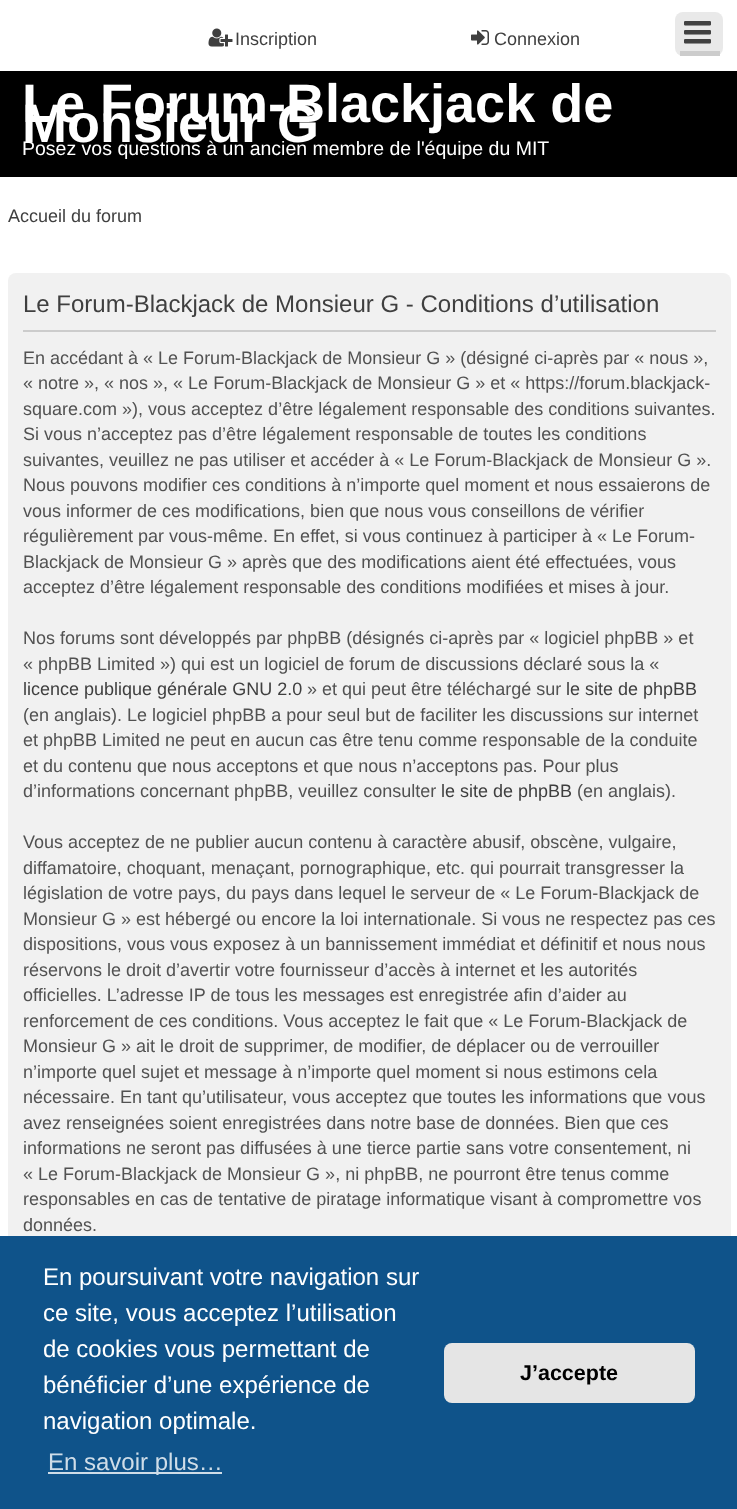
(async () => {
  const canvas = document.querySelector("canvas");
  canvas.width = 737;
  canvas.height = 1509;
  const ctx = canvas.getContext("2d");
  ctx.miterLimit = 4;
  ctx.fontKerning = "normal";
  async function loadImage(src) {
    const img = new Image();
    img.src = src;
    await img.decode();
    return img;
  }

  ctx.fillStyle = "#ffffff";
  ctx.fillRect(0, 0, 737, 1509);
  ctx.drawImage(await loadImage("img/1.png"), 208, 28, 25, 19);
  ctx.drawImage(await loadImage("img/2.png"), 471, 30, 18, 15);
  ctx.fillStyle = "#e9e9e9";
  ctx.beginPath();
  ctx.roundRect(675, 12, 48, 44, 8);
  ctx.fill();
  ctx.fillStyle = "#cccccc";
  ctx.fillRect(680, 51, 40, 5);
  ctx.drawImage(await loadImage("img/3.png"), 684, 21, 27, 23);
  ctx.fillStyle = "#000000";
  ctx.fillRect(0, 71, 737, 106);
  ctx.fillStyle = "#f1f1f1";
  ctx.beginPath();
  ctx.roundRect(8, 273, 723, 990, 8);
  ctx.fill();
  for (const [x, y, w, h, color] of [
    [23, 330, 693, 2, "#cccccc"],
    [0, 1236, 737, 273, "#0f538a"],
    [48, 1472, 174, 2, "#cfdde8"],
  ]) {
    ctx.fillStyle = color;
    ctx.fillRect(x, y, w, h);
  }
  ctx.fillStyle = "#e5e5e5";
  ctx.beginPath();
  ctx.roundRect(444, 1343, 251, 60, 8);
  ctx.fill();
  ctx.font = "18px Liberation Sans";
  ctx.fillStyle = "#3f3f3f";
  ctx.fillText("Inscription", 235, 45);
  ctx.fillText("Connexion", 494, 45);
  ctx.font = "bold 54px Liberation Sans";
  ctx.fillStyle = "#ffffff";
  ctx.fillText("Le Forum-Blackjack de", 22, 122);
  ctx.fillText("Monsieur G", 22, 142);
  ctx.font = "19.5px Liberation Sans";
  ctx.fillText("Posez vos questions à un ancien membre de l'équipe du MIT", 22, 155);
  ctx.font = "18px Liberation Sans";
  ctx.fillStyle = "#3f3f3f";
  ctx.fillText("Accueil du forum", 8, 222);
  ctx.font = "24px Liberation Sans";
  ctx.fillText("Le Forum-Blackjack de Monsieur G - Conditions d’utilisation", 23, 312);
  ctx.font = "18px Liberation Sans";
  ctx.fillStyle = "#525252";
  for (const [text, x, y] of [
    ["En accédant à « Le Forum-Blackjack de Monsieur G » (désigné ci-après par « nous »,", 23, 364],
    ["« notre », « nos », « Le Forum-Blackjack de Monsieur G » et « https://forum.blackjack-", 23, 389],
    ["square.com »), vous acceptez d’être légalement responsable des conditions suivantes.", 23, 415],
    ["Si vous n’acceptez pas d’être légalement responsable de toutes les conditions", 23, 440],
    ["suivantes, veuillez ne pas utiliser et accéder à « Le Forum-Blackjack de Monsieur G ».", 23, 466],
    ["Nous pouvons modifier ces conditions à n’importe quel moment et nous essaierons de", 23, 491],
    ["vous informer de ces modifications, bien que nous vous conseillons de vérifier", 23, 517],
    ["régulièrement par vous-même. En effet, si vous continuez à participer à « Le Forum-", 23, 542],
    ["Blackjack de Monsieur G » après que des modifications aient été effectuées, vous", 23, 568],
    ["acceptez d’être légalement responsable des conditions modifiées et mises à jour.", 23, 593],
    ["Nos forums sont développés par phpBB (désignés ci-après par « logiciel phpBB » et", 23, 644],
    ["« phpBB Limited ») qui est un logiciel de forum de discussions déclaré sous la «", 23, 670],
  ]) {
    ctx.fillText(text, x, y);
  }
  ctx.fillStyle = "#3f3f3f";
  ctx.fillText("licence publique générale GNU 2.0", 23, 695);
  ctx.fillStyle = "#525252";
  ctx.fillText("» et qui peut être téléchargé sur", 307, 695);
  ctx.fillStyle = "#3f3f3f";
  ctx.fillText("le site de phpBB", 566, 695);
  ctx.fillStyle = "#525252";
  for (const [text, x, y] of [
    ["(en anglais). Le logiciel phpBB a pour seul but de faciliter les discussions sur internet", 23, 721],
    ["et phpBB Limited ne peut en aucun cas être tenu comme responsable de la conduite", 23, 746],
    ["et du contenu que nous acceptons et que nous n’acceptons pas. Pour plus", 23, 772],
    ["d’informations concernant phpBB, veuillez consulter", 23, 797],
  ]) {
    ctx.fillText(text, x, y);
  }
  ctx.fillStyle = "#3f3f3f";
  ctx.fillText("le site de phpBB", 441, 797);
  ctx.fillStyle = "#525252";
  for (const [text, x, y] of [
    ["(en anglais).", 577, 797],
    ["Vous acceptez de ne publier aucun contenu à caractère abusif, obscène, vulgaire,", 23, 848],
    ["diffamatoire, choquant, menaçant, pornographique, etc. qui pourrait transgresser la", 23, 874],
    ["législation de votre pays, du pays dans lequel le serveur de « Le Forum-Blackjack de", 23, 899],
    ["Monsieur G » est hébergé ou encore la loi internationale. Si vous ne respectez pas ces", 23, 925],
    ["dispositions, vous vous exposez à un bannissement immédiat et définitif et nous nous", 23, 950],
    ["réservons le droit d’avertir votre fournisseur d’accès à internet et les autorités", 23, 976],
    ["officielles. L’adresse IP de tous les messages est enregistrée afin d’aider au", 23, 1001],
    ["renforcement de ces conditions. Vous acceptez le fait que « Le Forum-Blackjack de", 23, 1027],
    ["Monsieur G » ait le droit de supprimer, de modifier, de déplacer ou de verrouiller", 23, 1052],
    ["n’importe quel sujet et message à n’importe quel moment si nous estimons cela", 23, 1078],
    ["nécessaire. En tant qu’utilisateur, vous acceptez que toutes les informations que vous", 23, 1103],
    ["avez renseignées soient enregistrées dans notre base de données. Bien que ces", 23, 1129],
    ["informations ne seront pas diffusées à une tierce partie sans votre consentement, ni", 23, 1154],
    ["« Le Forum-Blackjack de Monsieur G », ni phpBB, ne pourront être tenus comme", 23, 1180],
    ["responsables en cas de tentative de piratage informatique visant à compromettre vos", 23, 1205],
    ["données.", 23, 1231],
  ]) {
    ctx.fillText(text, x, y);
  }
  ctx.font = "24px Liberation Sans";
  ctx.fillStyle = "#ffffff";
  for (const [text, x, y] of [
    ["En poursuivant votre navigation sur", 43, 1285],
    ["ce site, vous acceptez l’utilisation", 43, 1321],
    ["de cookies vous permettant de", 43, 1357],
    ["bénéficier d’une expérience de", 43, 1393],
    ["navigation optimale.", 43, 1429],
  ]) {
    ctx.fillText(text, x, y);
  }
  ctx.fillStyle = "#cfdde8";
  ctx.fillText("En savoir plus…", 48, 1470);
  ctx.font = "bold 21.5px Liberation Sans";
  ctx.fillStyle = "#000000";
  ctx.fillText("J’accepte", 520, 1380);
})();
